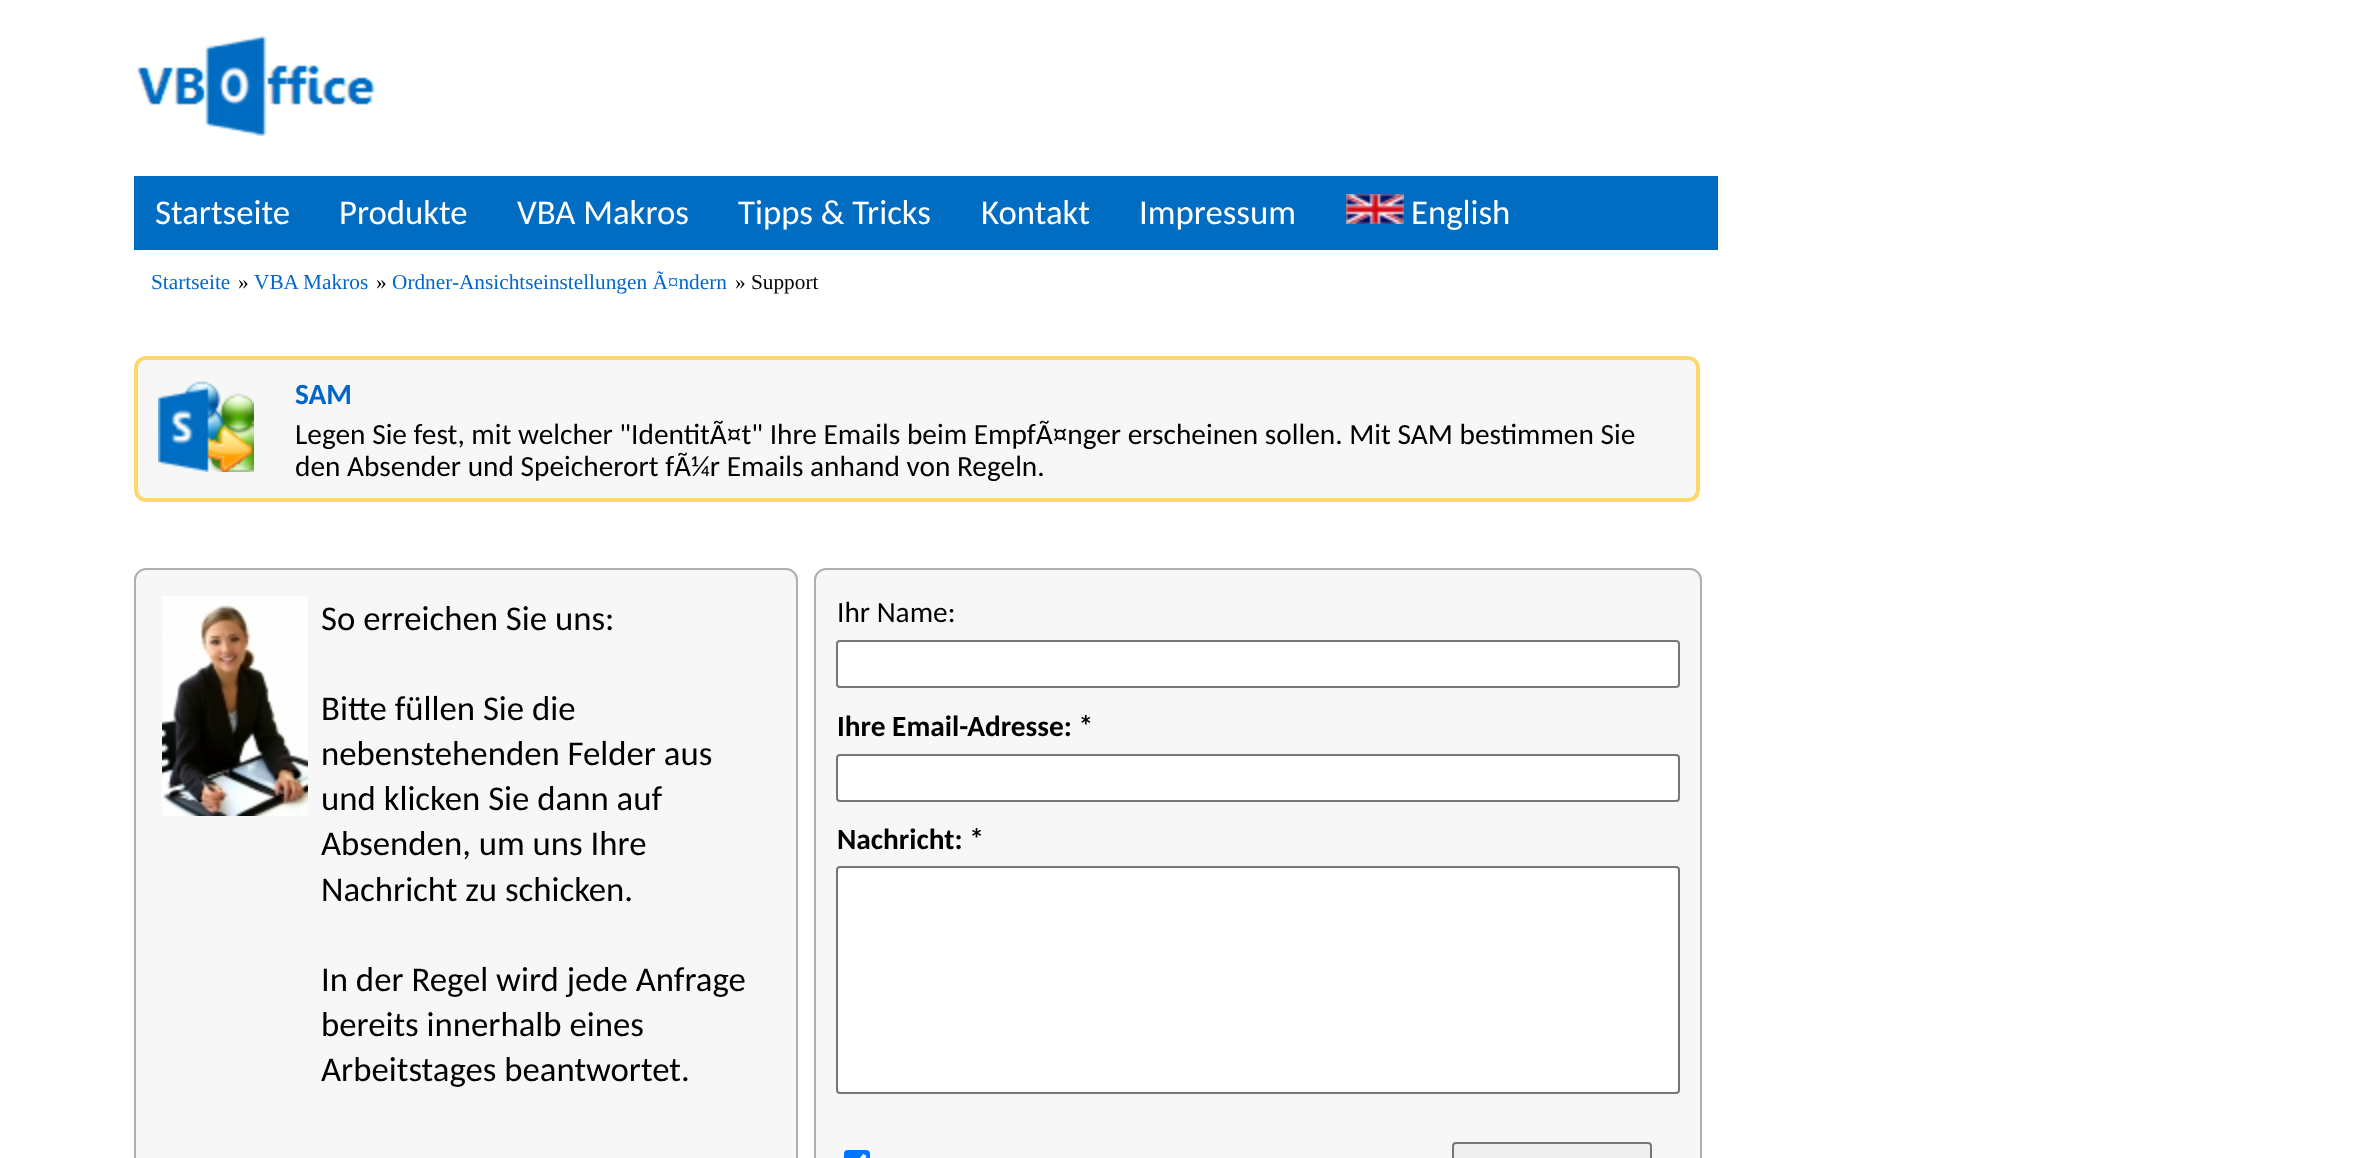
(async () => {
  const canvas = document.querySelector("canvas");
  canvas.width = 2373;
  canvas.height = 1158;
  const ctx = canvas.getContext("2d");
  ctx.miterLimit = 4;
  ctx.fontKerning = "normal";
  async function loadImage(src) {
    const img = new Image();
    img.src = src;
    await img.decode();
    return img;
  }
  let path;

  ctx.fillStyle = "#ffffff";
  ctx.fillRect(0, 0, 2373, 1158);
  ctx.drawImage(await loadImage("img/1.png"), 137, 36, 238, 100);
  ctx.fillStyle = "#006dc2";
  ctx.fillRect(134, 176, 1584, 74);
  ctx.drawImage(await loadImage("img/2.png"), 1346, 194, 58, 30);
  ctx.fillStyle = "#f7f7f7";
  ctx.beginPath();
  ctx.roundRect(136, 358, 1562, 142, 10);
  ctx.fill();
  ctx.strokeStyle = "#ffd76c";
  ctx.lineWidth = 4;
  ctx.stroke();
  ctx.drawImage(await loadImage("img/3.png"), 158, 381, 96, 91);
  ctx.beginPath();
  ctx.roundRect(135, 569, 662, 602, 11);
  ctx.fill();
  ctx.strokeStyle = "#afafaf";
  ctx.lineWidth = 2;
  ctx.stroke();
  ctx.drawImage(await loadImage("img/4.png"), 162, 596, 146, 220);
  ctx.beginPath();
  ctx.roundRect(815, 569, 886, 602, 11);
  ctx.fill();
  ctx.stroke();
  ctx.fillStyle = "#ffffff";
  ctx.beginPath();
  ctx.roundRect(837, 641, 842, 46, 3);
  ctx.fill();
  ctx.strokeStyle = "#767676";
  ctx.stroke();
  ctx.beginPath();
  ctx.roundRect(837, 755, 842, 46, 3);
  ctx.fill();
  ctx.stroke();
  ctx.beginPath();
  ctx.roundRect(837, 867, 842, 226, 3);
  ctx.fill();
  ctx.stroke();
  ctx.fillStyle = "#0075ff";
  ctx.beginPath();
  ctx.roundRect(844, 1150, 26, 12, 4);
  ctx.fill();
  path = new Path2D("M849 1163L854.5 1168L865 1155");
  ctx.strokeStyle = "#ffffff";
  ctx.lineWidth = 4.2;
  ctx.stroke(path);
  ctx.fillStyle = "#efefef";
  ctx.beginPath();
  ctx.roundRect(1453, 1143, 198, 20, 3);
  ctx.fill();
  ctx.strokeStyle = "#767676";
  ctx.lineWidth = 2;
  ctx.stroke();
  ctx.font = "34.75px Carlito";
  ctx.fillStyle = "#ffffff";
  for (const [text, x, y] of [
    ["Startseite", 155, 224],
    ["Produkte", 339, 224],
    ["VBA Makros", 517, 224],
    ["Tipps & Tricks", 738, 224],
    ["Kontakt", 981, 224],
    ["Impressum", 1139, 224],
    ["English", 1411, 224],
  ]) {
    ctx.fillText(text, x, y);
  }
  ctx.font = "21.3px Liberation Serif";
  ctx.fillStyle = "#0066cc";
  ctx.fillText("Startseite", 151, 289);
  ctx.fillStyle = "#000000";
  ctx.fillText("»", 238, 289);
  ctx.fillStyle = "#0066cc";
  ctx.fillText("VBA Makros", 254, 289);
  ctx.fillStyle = "#000000";
  ctx.fillText("»", 376, 289);
  ctx.fillStyle = "#0066cc";
  ctx.fillText("Ordner-Ansichtseinstellungen Ã¤ndern", 392, 289);
  ctx.fillStyle = "#000000";
  ctx.fillText("» Support", 735, 289);
  ctx.font = "bold 29.35px Carlito";
  ctx.fillStyle = "#0066cc";
  ctx.fillText("SAM", 295, 404);
  ctx.font = "29.35px Carlito";
  ctx.fillStyle = "#000000";
  ctx.fillText("Legen Sie fest, mit welcher \"IdentitÃ¤t\" Ihre Emails beim EmpfÃ¤nger erscheinen sollen. Mit SAM bestimmen Sie", 295, 444);
  ctx.fillText("den Absender und Speicherort fÃ¼r Emails anhand von Regeln.", 295, 476);
  ctx.font = "34.75px Carlito";
  for (const [text, x, y] of [
    ["So erreichen Sie uns:", 321, 630],
    ["Bitte füllen Sie die", 321, 720],
    ["nebenstehenden Felder aus", 321, 765],
    ["und klicken Sie dann auf", 321, 810],
    ["Absenden, um uns Ihre", 321, 855],
    ["Nachricht zu schicken.", 321, 901],
    ["In der Regel wird jede Anfrage", 321, 991],
    ["bereits innerhalb eines", 321, 1036],
    ["Arbeitstages beantwortet.", 321, 1081],
  ]) {
    ctx.fillText(text, x, y);
  }
  ctx.font = "29.35px Carlito";
  ctx.fillText("Ihr Name:", 837, 622);
  ctx.font = "bold 29.35px Carlito";
  ctx.fillText("Ihre Email-Adresse: *", 837, 736);
  ctx.fillText("Nachricht: *", 837, 849);
})();
